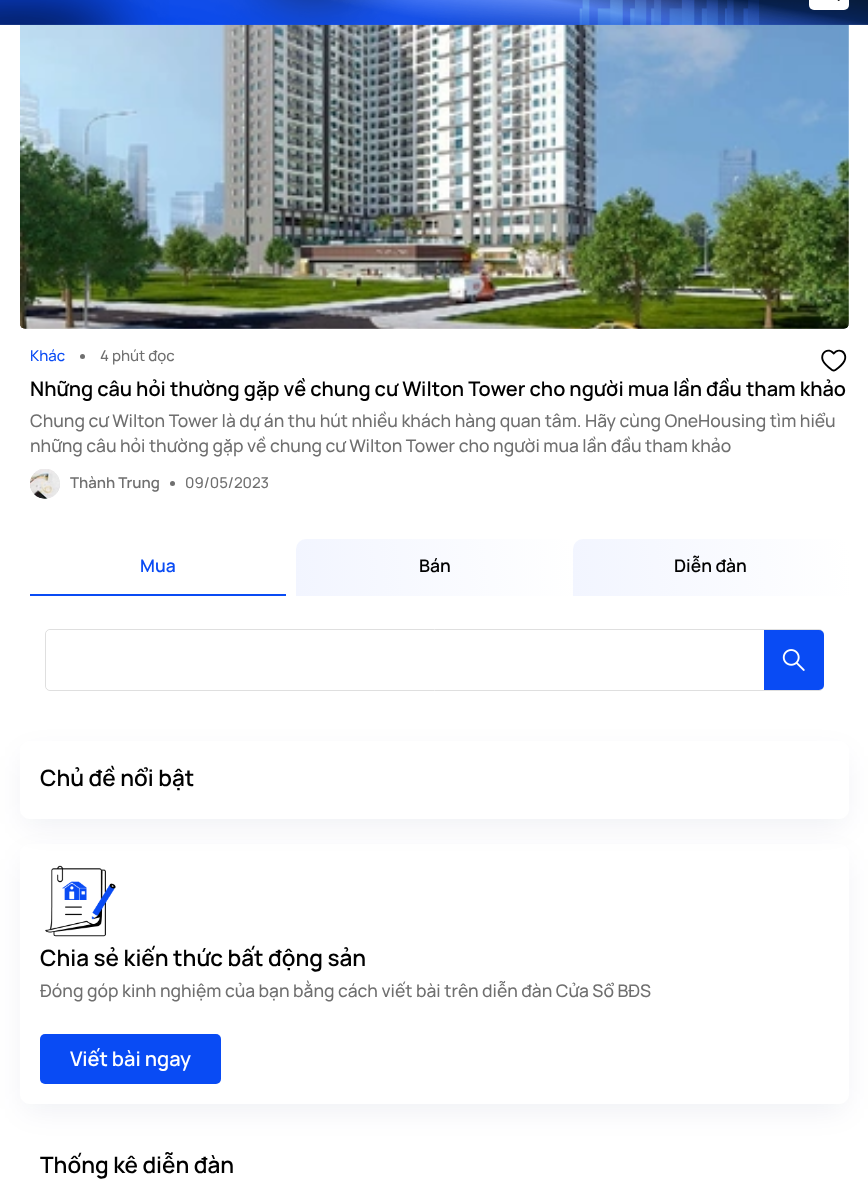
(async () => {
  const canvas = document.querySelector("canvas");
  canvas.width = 868;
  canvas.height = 1190;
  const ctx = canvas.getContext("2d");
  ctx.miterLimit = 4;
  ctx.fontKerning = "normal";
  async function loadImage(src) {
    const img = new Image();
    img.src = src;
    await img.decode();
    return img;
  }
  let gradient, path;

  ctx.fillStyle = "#ffffff";
  ctx.fillRect(0, 0, 868, 1190);
  ctx.drawImage(await loadImage("img/3.png"), 20, 24, 829, 305);
  ctx.drawImage(await loadImage("img/4.png"), 20, 24, 829, 305);
  ctx.drawImage(await loadImage("img/1.png"), 0, 0, 868, 25);
  ctx.beginPath();
  ctx.roundRect(809, -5, 40, 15, 5);
  ctx.fill();
  ctx.drawImage(await loadImage("img/2.png"), 837, 0, 3, 1);
  ctx.fillStyle = "#6f6f6f";
  ctx.beginPath();
  ctx.arc(82.5, 356.5, 2.5, 0, Math.PI * 2);
  ctx.fill();
  ctx.drawImage(await loadImage("img/5.png"), 821, 349, 26, 23);
  ctx.drawImage(await loadImage("img/6.png"), 30, 469, 30, 30);
  ctx.drawImage(await loadImage("img/7.png"), 30, 469, 30, 30);
  ctx.beginPath();
  ctx.arc(172.5, 483.5, 2.5, 0, Math.PI * 2);
  ctx.fill();
  ctx.fillStyle = "#094bf4";
  ctx.fillRect(30, 594, 256, 2);
  gradient = ctx.createLinearGradient(574, 553, 295, 582);
  gradient.addColorStop(0, "#ffffff");
  gradient.addColorStop(1, "#f2f5ff");
  ctx.fillStyle = gradient;
  ctx.beginPath();
  ctx.roundRect(296, 539, 277, 57, [10, 10, 0, 0]);
  ctx.fill();
  gradient = ctx.createLinearGradient(850, 553, 571, 582);
  gradient.addColorStop(0, "#ffffff");
  gradient.addColorStop(1, "#f2f5ff");
  ctx.fillStyle = gradient;
  ctx.beginPath();
  ctx.roundRect(573, 539, 276, 57, [10, 10, 0, 0]);
  ctx.fill();
  ctx.beginPath();
  ctx.roundRect(45.5, 629.5, 778, 61, 4.5);
  ctx.strokeStyle = "#dfdfdf";
  ctx.stroke();
  ctx.fillStyle = "#ffffff";
  ctx.beginPath();
  ctx.roundRect(46, 630, 777, 60, 5);
  ctx.fill();
  ctx.fillStyle = "#094bf4";
  ctx.beginPath();
  ctx.roundRect(764, 630, 60, 60, [0, 5, 5, 0]);
  ctx.fill();
  ctx.drawImage(await loadImage("img/8.png"), 782, 649, 23, 22);
  ctx.save();
  path = new Path2D("M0 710H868V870H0ZM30 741H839C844.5 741 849 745.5 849 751V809C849 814.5 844.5 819 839 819H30C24.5 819 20 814.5 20 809V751C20 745.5 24.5 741 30 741Z");
  ctx.clip(path, "evenodd");
  ctx.fillStyle = "rgba(0, 9, 87, 0.07)";
  ctx.filter = "blur(15px)";
  ctx.beginPath();
  ctx.roundRect(25, 756, 819, 68, 5);
  ctx.fill();
  ctx.filter = "none";
  ctx.restore();
  ctx.save();
  path = new Path2D("M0 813H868V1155H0ZM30 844H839C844.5 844 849 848.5 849 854V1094C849 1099.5 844.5 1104 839 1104H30C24.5 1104 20 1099.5 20 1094V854C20 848.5 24.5 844 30 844Z");
  ctx.clip(path, "evenodd");
  ctx.fillStyle = "rgba(0, 9, 87, 0.07)";
  ctx.filter = "blur(15px)";
  ctx.beginPath();
  ctx.roundRect(25, 859, 819, 250, 5);
  ctx.fill();
  ctx.filter = "none";
  ctx.restore();
  ctx.drawImage(await loadImage("img/9.png"), 45, 865, 71, 72);
  ctx.beginPath();
  ctx.roundRect(40, 1034, 181, 50, 5);
  ctx.fill();
  ctx.font = "500 15px Manrope";
  ctx.fillText("Khác", 30, 361);
  ctx.fillStyle = "#6f6f6f";
  ctx.fillText("4 phút đọc", 100, 361);
  ctx.font = "600 20px Manrope";
  ctx.fillStyle = "#000000";
  ctx.fillText("Những câu hỏi thường gặp về chung cư Wilton Tower cho người mua lần đầu tham khảo", 30, 396);
  ctx.font = "500 17.5px Manrope";
  ctx.fillStyle = "#6f6f6f";
  ctx.fillText("Chung cư Wilton Tower là dự án thu hút nhiều khách hàng quan tâm. Hãy cùng OneHousing tìm hiểu", 30, 427);
  ctx.fillText("những câu hỏi thường gặp về chung cư Wilton Tower cho người mua lần đầu tham khảo", 30, 452);
  ctx.font = "600 15px Manrope";
  ctx.fillText("Thành Trung", 70, 488);
  ctx.font = "500 15px Manrope";
  ctx.fillText("09/05/2023", 185, 488);
  ctx.font = "600 17.5px Manrope";
  ctx.fillStyle = "#094bf4";
  ctx.fillText("Mua", 140, 572);
  ctx.fillStyle = "#000000";
  ctx.fillText("Bán", 419, 572);
  ctx.fillText("Diễn đàn", 674, 572);
  ctx.font = "600 22.5px Manrope";
  ctx.fillText("Chủ đề nổi bật", 40, 786);
  ctx.fillText("Chia sẻ kiến thức bất động sản", 40, 966);
  ctx.font = "500 17.5px Manrope";
  ctx.fillStyle = "#6f6f6f";
  ctx.fillText("Đóng góp kinh nghiệm của bạn bằng cách viết bài trên diễn đàn Cửa Sổ BĐS", 40, 997);
  ctx.font = "600 20px Manrope";
  ctx.fillStyle = "#ffffff";
  ctx.fillText("Viết bài ngay", 70, 1066);
  ctx.font = "600 22.5px Manrope";
  ctx.fillStyle = "#000000";
  ctx.fillText("Thống kê diễn đàn", 40, 1173);
})();
